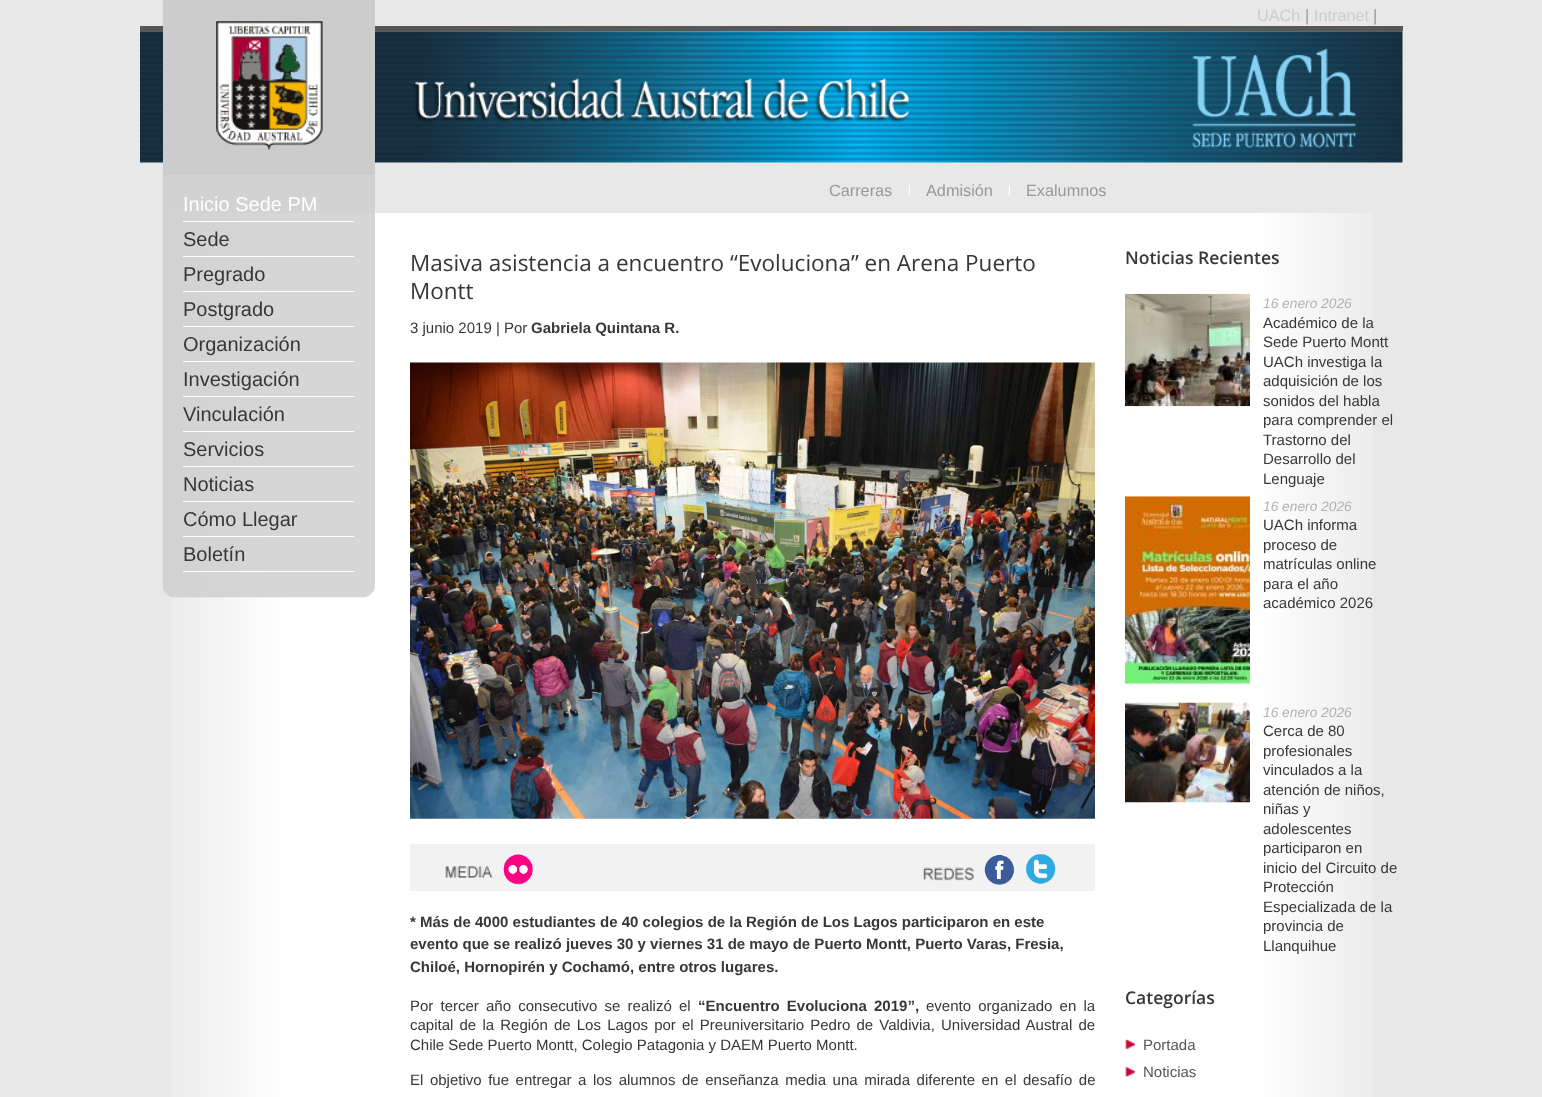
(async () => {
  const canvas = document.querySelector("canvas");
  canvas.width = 1542;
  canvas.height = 1097;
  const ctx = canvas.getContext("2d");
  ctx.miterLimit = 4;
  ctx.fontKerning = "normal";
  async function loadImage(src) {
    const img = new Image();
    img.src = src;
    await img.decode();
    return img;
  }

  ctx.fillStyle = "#e8e8e8";
  ctx.fillRect(0, 0, 1542, 1097);
  ctx.fillStyle = "#575756";
  ctx.fillRect(140, 26, 1263, 5);
  ctx.drawImage(await loadImage("img/1.png"), 140, 31, 1263, 132);
  ctx.drawImage(await loadImage("img/2.png"), 908, 185, 2, 12);
  ctx.drawImage(await loadImage("img/2.png"), 1008, 185, 2, 12);
  ctx.fillStyle = "#cccccc";
  ctx.fillRect(163, 0, 212, 175);
  ctx.drawImage(await loadImage("img/3.png"), 216, 21, 107, 129);
  ctx.drawImage(await loadImage("img/5.png"), 172, 213, 1200, 12);
  ctx.drawImage(await loadImage("img/6.png"), 172, 225, 1200, 872);
  ctx.drawImage(await loadImage("img/4.png"), 162, 175, 213, 423);
  for (const [x, y, w, h, color] of [
    [183, 221, 171, 1, "#ffffff"],
    [183, 256, 171, 1, "#ffffff"],
    [183, 291, 171, 1, "#ffffff"],
    [183, 326, 171, 1, "#ffffff"],
    [183, 361, 171, 1, "#ffffff"],
    [183, 396, 171, 1, "#ffffff"],
    [183, 431, 171, 1, "#ffffff"],
    [183, 466, 171, 1, "#ffffff"],
    [183, 501, 171, 1, "#ffffff"],
    [183, 536, 171, 1, "#ffffff"],
    [183, 571, 171, 1, "#ffffff"],
  ]) {
    ctx.fillStyle = color;
    ctx.fillRect(x, y, w, h);
  }
  ctx.drawImage(await loadImage("img/7.png"), 410, 362, 685, 457);
  ctx.fillStyle = "#f2f2f2";
  ctx.fillRect(410, 844, 685, 47);
  ctx.drawImage(await loadImage("img/8.png"), 445, 866, 48, 12);
  ctx.drawImage(await loadImage("img/9.png"), 503, 854, 30, 31);
  ctx.drawImage(await loadImage("img/10.png"), 923, 867, 51, 14);
  ctx.drawImage(await loadImage("img/11.png"), 984, 855, 31, 30);
  ctx.drawImage(await loadImage("img/12.png"), 1025, 854, 31, 30);
  ctx.drawImage(await loadImage("img/13.png"), 1125, 293, 125, 114);
  ctx.drawImage(await loadImage("img/14.png"), 1125, 496, 125, 188);
  ctx.drawImage(await loadImage("img/15.png"), 1125, 702, 125, 101);
  ctx.drawImage(await loadImage("img/16.png"), 1125, 1038, 10, 11);
  ctx.drawImage(await loadImage("img/17.png"), 1125, 1066, 10, 11);
  ctx.font = "16.25px Liberation Sans";
  ctx.fillStyle = "#cccccc";
  ctx.fillText("UACh", 1257, 21);
  ctx.fillStyle = "#999999";
  ctx.fillText("|", 1305, 21);
  ctx.fillStyle = "#cccccc";
  ctx.fillText("Intranet", 1314, 21);
  ctx.fillStyle = "#999999";
  for (const [text, x, y] of [
    ["|", 1373, 21],
    ["Carreras", 829, 196],
    ["Admisión", 926, 196],
    ["Exalumnos", 1026, 196],
  ]) {
    ctx.fillText(text, x, y);
  }
  ctx.font = "20px Liberation Sans";
  ctx.fillStyle = "#ffffff";
  ctx.fillText("Inicio Sede PM", 183, 211);
  ctx.fillStyle = "#373737";
  for (const [text, x, y] of [
    ["Sede", 183, 246],
    ["Pregrado", 183, 281],
    ["Postgrado", 183, 316],
    ["Organización", 183, 351],
    ["Investigación", 183, 386],
    ["Vinculación", 183, 421],
    ["Servicios", 183, 456],
    ["Noticias", 183, 491],
    ["Cómo Llegar", 183, 526],
    ["Boletín", 183, 561],
  ]) {
    ctx.fillText(text, x, y);
  }
  ctx.font = "22.5px Open Sans";
  ctx.fillText("Masiva asistencia a encuentro “Evoluciona” en Arena Puerto", 410, 271);
  ctx.fillText("Montt", 410, 299);
  ctx.font = "15px Liberation Sans";
  ctx.fillText("3 junio 2019 | Por", 410, 333);
  ctx.font = "bold 15px Liberation Sans";
  for (const [text, x, y] of [
    ["Gabriela Quintana R.", 531, 333],
    ["* Más de 4000 estudiantes de 40 colegios de la Región de Los Lagos participaron en este", 410, 927],
    ["evento que se realizó jueves 30 y viernes 31 de mayo de Puerto Montt, Puerto Varas, Fresia,", 410, 949],
    ["Chiloé, Hornopirén y Cochamó, entre otros lugares.", 410, 972],
  ]) {
    ctx.fillText(text, x, y);
  }
  ctx.wordSpacing = "3px";
  ctx.font = "15px Liberation Sans";
  ctx.fillText("Por tercer año consecutivo se realizó el", 410, 1011);
  ctx.font = "bold 15px Liberation Sans";
  ctx.fillText("“Encuentro Evoluciona 2019”,", 698, 1011);
  ctx.font = "15px Liberation Sans";
  ctx.fillText("evento organizado en la", 926, 1011);
  ctx.wordSpacing = "2px";
  ctx.fillText("capital de la Región de Los Lagos por el Preuniversitario Pedro de Valdivia, Universidad Austral de", 410, 1030);
  ctx.wordSpacing = "0px";
  ctx.fillText("Chile Sede Puerto Montt, Colegio Patagonia y DAEM Puerto Montt.", 410, 1050);
  ctx.wordSpacing = "2.4px";
  ctx.fillText("El objetivo fue entregar a los alumnos de enseñanza media una mirada diferente en el desafío de", 410, 1085);
  ctx.wordSpacing = "0px";
  ctx.font = "600 17.5px Open Sans";
  ctx.fillText("Noticias Recientes", 1125, 264);
  ctx.font = "italic 13.75px Liberation Sans";
  ctx.fillStyle = "#b2b2b2";
  ctx.fillText("16 enero 2026", 1263, 308);
  ctx.font = "15px Liberation Sans";
  ctx.fillStyle = "#373737";
  for (const [text, x, y] of [
    ["Académico de la", 1263, 328],
    ["Sede Puerto Montt", 1263, 347],
    ["UACh investiga la", 1263, 367],
    ["adquisición de los", 1263, 386],
    ["sonidos del habla", 1263, 406],
    ["para comprender el", 1263, 425],
    ["Trastorno del", 1263, 445],
    ["Desarrollo del", 1263, 464],
    ["Lenguaje", 1263, 484],
  ]) {
    ctx.fillText(text, x, y);
  }
  ctx.font = "italic 13.75px Liberation Sans";
  ctx.fillStyle = "#b2b2b2";
  ctx.fillText("16 enero 2026", 1263, 511);
  ctx.font = "15px Liberation Sans";
  ctx.fillStyle = "#373737";
  for (const [text, x, y] of [
    ["UACh informa", 1263, 530],
    ["proceso de", 1263, 550],
    ["matrículas online", 1263, 569],
    ["para el año", 1263, 589],
    ["académico 2026", 1263, 608],
  ]) {
    ctx.fillText(text, x, y);
  }
  ctx.font = "italic 13.75px Liberation Sans";
  ctx.fillStyle = "#b2b2b2";
  ctx.fillText("16 enero 2026", 1263, 717);
  ctx.font = "15px Liberation Sans";
  ctx.fillStyle = "#373737";
  for (const [text, x, y] of [
    ["Cerca de 80", 1263, 736],
    ["profesionales", 1263, 756],
    ["vinculados a la", 1263, 775],
    ["atención de niños,", 1263, 795],
    ["niñas y", 1263, 814],
    ["adolescentes", 1263, 834],
    ["participaron en", 1263, 853],
    ["inicio del Circuito de", 1263, 873],
    ["Protección", 1263, 892],
    ["Especializada de la", 1263, 912],
    ["provincia de", 1263, 931],
    ["Llanquihue", 1263, 951],
  ]) {
    ctx.fillText(text, x, y);
  }
  ctx.font = "600 17.5px Open Sans";
  ctx.fillText("Categorías", 1125, 1004);
  ctx.font = "15px Liberation Sans";
  ctx.fillStyle = "#575756";
  ctx.fillText("Portada", 1143, 1050);
  ctx.fillText("Noticias", 1143, 1077);
})();
